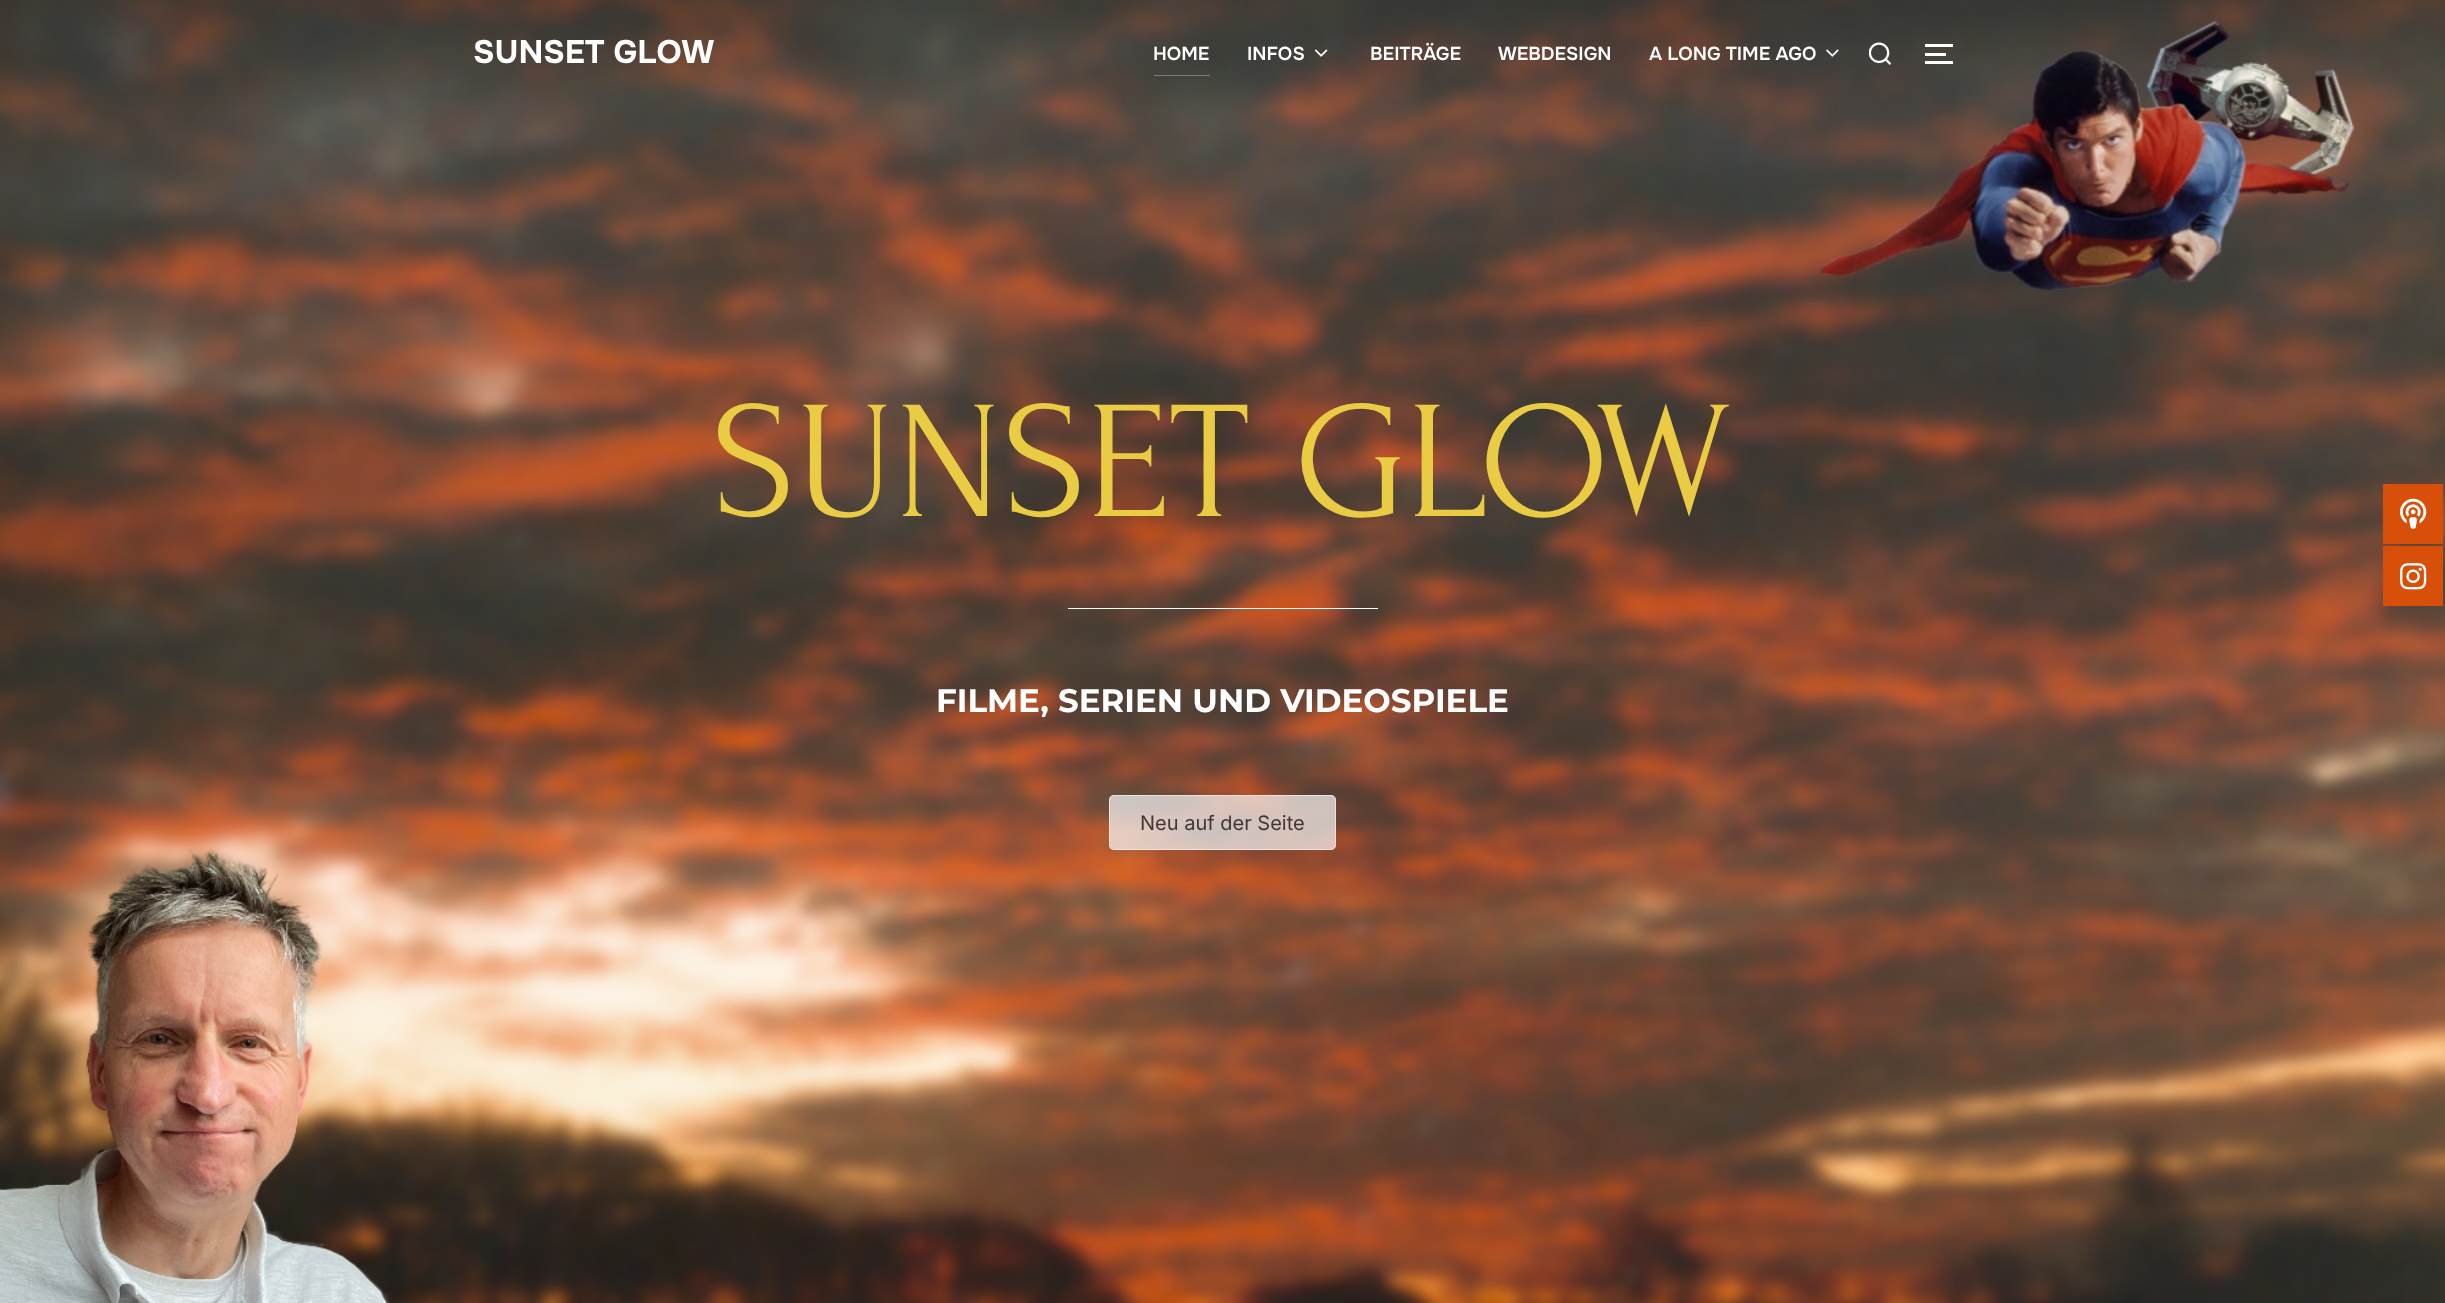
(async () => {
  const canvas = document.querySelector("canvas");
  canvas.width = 2445;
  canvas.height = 1303;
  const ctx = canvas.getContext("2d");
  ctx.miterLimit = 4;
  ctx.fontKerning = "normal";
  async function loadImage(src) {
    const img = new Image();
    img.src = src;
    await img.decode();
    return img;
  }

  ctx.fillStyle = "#ffffff";
  ctx.fillRect(0, 0, 2445, 1303);
  ctx.drawImage(await loadImage("img/4.png"), 0, 0, 2445, 1303);
  ctx.fillStyle = "rgba(255, 255, 255, 0.3)";
  ctx.fillRect(1154, 75, 56, 1);
  ctx.drawImage(await loadImage("img/1.png"), 1314, 49, 14, 8);
  ctx.drawImage(await loadImage("img/2.png"), 1826, 49, 13, 8);
  ctx.drawImage(await loadImage("img/3.png"), 1869, 42, 22, 23);
  for (const [x, y, w, h, color] of [
    [1925, 44, 28, 3, "#ffffff"],
    [1925, 53, 21, 3, "#ffffff"],
    [1925, 61, 28, 3, "#ffffff"],
    [1068, 608, 310, 1, "#ffffff"],
  ]) {
    ctx.fillStyle = color;
    ctx.fillRect(x, y, w, h);
  }
  ctx.fillStyle = "rgba(255, 255, 255, 0.68)";
  ctx.beginPath();
  ctx.roundRect(1109, 795, 227, 55, 5);
  ctx.fill();
  ctx.beginPath();
  ctx.roundRect(1109.5, 795.5, 226, 54, 4.5);
  ctx.strokeStyle = "rgba(243, 243, 243, 0.68)";
  ctx.stroke();
  ctx.fillStyle = "#d84f0a";
  ctx.fillRect(2383, 484, 60, 60);
  ctx.drawImage(await loadImage("img/5.png"), 2400, 498, 27, 31);
  ctx.fillRect(2383, 546, 60, 60);
  ctx.drawImage(await loadImage("img/6.png"), 2400, 563, 27, 27);
  ctx.font = "bold 32.5px Onest";
  ctx.fillStyle = "#ffffff";
  ctx.fillText("SUNSET GLOW", 473, 63);
  ctx.font = "600 18.75px Onest";
  for (const [text, x, y] of [
    ["HOME", 1153, 60],
    ["INFOS", 1247, 60],
    ["BEITRÄGE", 1370, 60],
    ["WEBDESIGN", 1498, 60],
    ["A LONG TIME AGO", 1649, 60],
  ]) {
    ctx.fillText(text, x, y);
  }
  ctx.letterSpacing = "1.25px";
  ctx.font = "168.75px Forum";
  ctx.fillStyle = "#eacc44";
  ctx.fillText("SUNSET GLOW", 712, 516);
  ctx.letterSpacing = "0px";
  ctx.font = "bold 32.5px Montserrat";
  ctx.fillStyle = "#ffffff";
  ctx.fillText("FILME, SERIEN UND VIDEOSPIELE", 936, 712);
  ctx.font = "20px Inter";
  ctx.fillStyle = "#3f3737";
  ctx.fillText("Neu auf der Seite", 1140, 830);
})();
